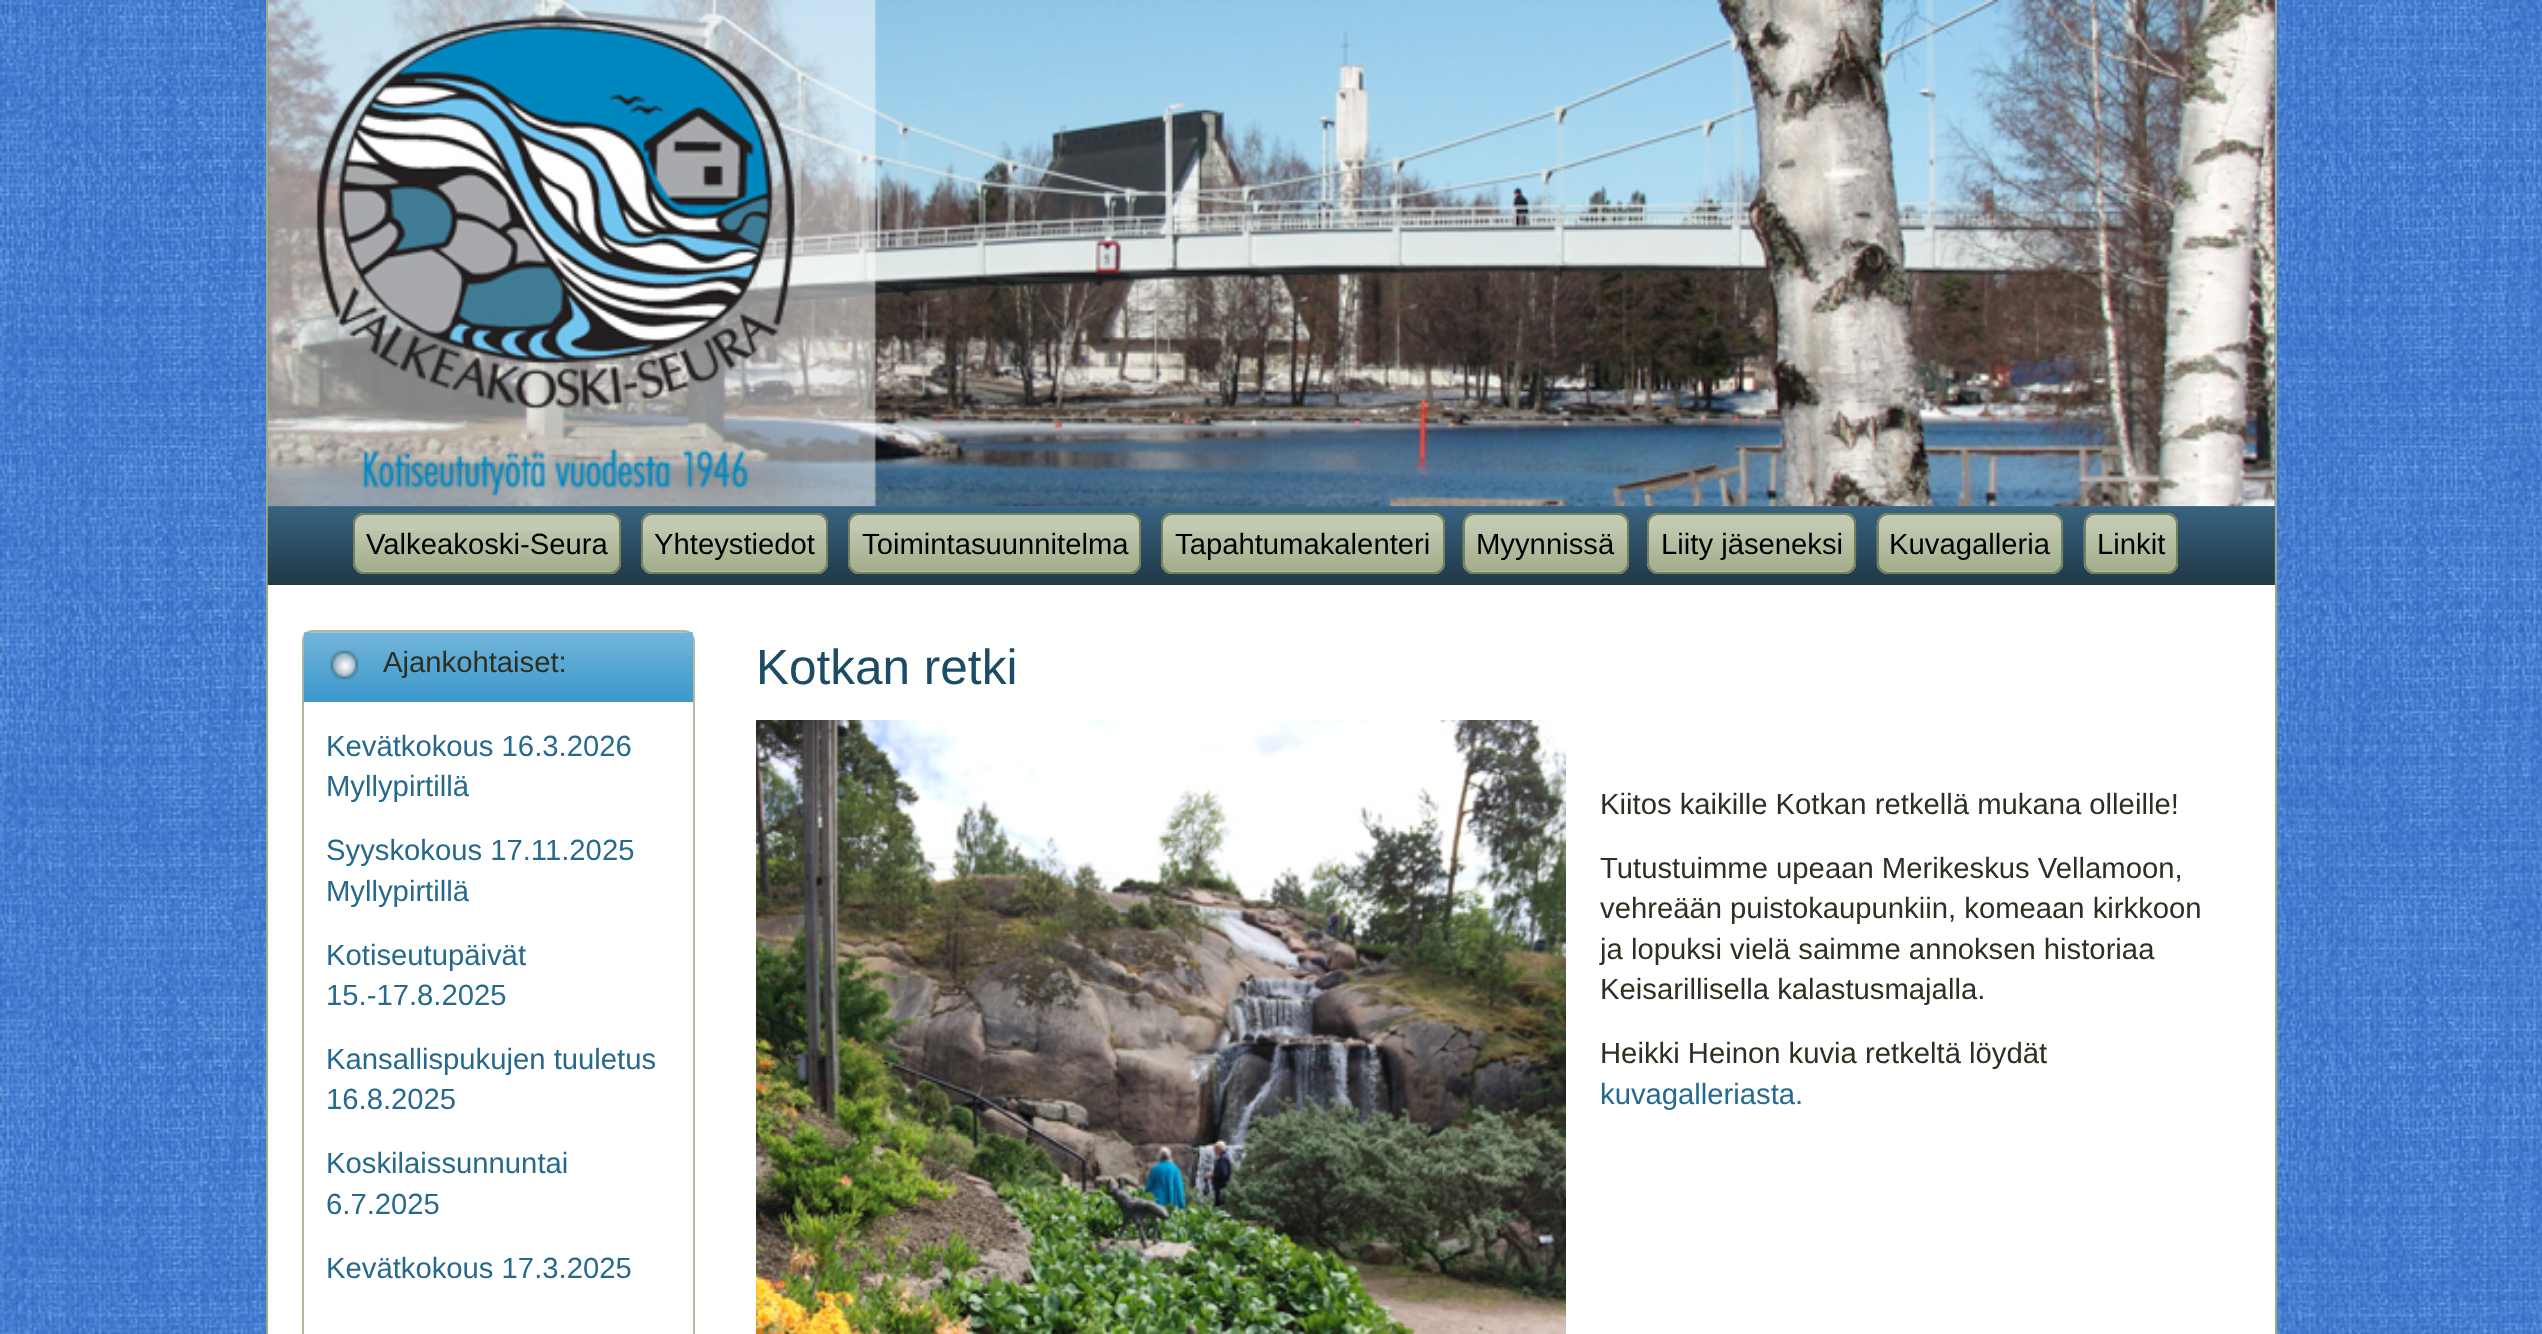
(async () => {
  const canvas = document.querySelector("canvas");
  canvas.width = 2542;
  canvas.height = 1334;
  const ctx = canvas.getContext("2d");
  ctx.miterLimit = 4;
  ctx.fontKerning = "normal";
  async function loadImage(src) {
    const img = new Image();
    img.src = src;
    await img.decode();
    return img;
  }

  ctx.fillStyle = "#ffffff";
  ctx.fillRect(0, 0, 2542, 1334);
  ctx.drawImage(await loadImage("img/1.png"), 0, 0, 2542, 1334);
  ctx.fillStyle = "#9ca984";
  ctx.fillRect(2275, 0, 2, 1334);
  ctx.fillRect(266, 0, 2, 1334);
  ctx.drawImage(await loadImage("img/3.png"), 267, 506, 2008, 79);
  ctx.drawImage(await loadImage("img/2.png"), 267, 0, 2008, 507);
  ctx.fillStyle = "#c2cab2";
  ctx.beginPath();
  ctx.roundRect(353, 513, 268, 61, 11);
  ctx.fill();
  ctx.drawImage(await loadImage("img/4.png"), 353, 530, 268, 42);
  ctx.beginPath();
  ctx.roundRect(354, 514, 266, 59, 10);
  ctx.strokeStyle = "#74815a";
  ctx.lineWidth = 2;
  ctx.stroke();
  ctx.beginPath();
  ctx.roundRect(641, 513, 187, 61, 11);
  ctx.fill();
  ctx.drawImage(await loadImage("img/5.png"), 641, 530, 187, 42);
  ctx.beginPath();
  ctx.roundRect(642, 514, 185, 59, 10);
  ctx.stroke();
  ctx.beginPath();
  ctx.roundRect(848, 513, 293, 61, 11);
  ctx.fill();
  ctx.drawImage(await loadImage("img/6.png"), 848, 530, 293, 42);
  ctx.beginPath();
  ctx.roundRect(849, 514, 291, 59, 10);
  ctx.stroke();
  ctx.beginPath();
  ctx.roundRect(1161, 513, 284, 61, 11);
  ctx.fill();
  ctx.drawImage(await loadImage("img/7.png"), 1161, 530, 284, 42);
  ctx.beginPath();
  ctx.roundRect(1162, 514, 282, 59, 10);
  ctx.stroke();
  ctx.beginPath();
  ctx.roundRect(1463, 513, 166, 61, 11);
  ctx.fill();
  ctx.drawImage(await loadImage("img/8.png"), 1462, 524, 167, 48);
  ctx.beginPath();
  ctx.roundRect(1464, 514, 164, 59, 10);
  ctx.stroke();
  ctx.beginPath();
  ctx.roundRect(1647, 513, 209, 61, 11);
  ctx.fill();
  ctx.drawImage(await loadImage("img/9.png"), 1647, 524, 210, 48);
  ctx.beginPath();
  ctx.roundRect(1648, 514, 207, 59, 10);
  ctx.stroke();
  ctx.beginPath();
  ctx.roundRect(1877, 513, 186, 61, 11);
  ctx.fill();
  ctx.drawImage(await loadImage("img/10.png"), 1876, 524, 188, 48);
  ctx.beginPath();
  ctx.roundRect(1878, 514, 184, 59, 10);
  ctx.stroke();
  ctx.beginPath();
  ctx.roundRect(2084, 513, 94, 61, 11);
  ctx.fill();
  ctx.drawImage(await loadImage("img/11.png"), 2083, 524, 95, 48);
  ctx.beginPath();
  ctx.roundRect(2085, 514, 92, 59, 10);
  ctx.stroke();
  ctx.fillStyle = "#ffffff";
  ctx.fillRect(268, 585, 2007, 749);
  ctx.beginPath();
  ctx.roundRect(303, 631, 391, 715, 10);
  ctx.strokeStyle = "#afba9c";
  ctx.stroke();
  ctx.drawImage(await loadImage("img/12.png"), 303, 632, 390, 70);
  ctx.drawImage(await loadImage("img/13.png"), 756, 720, 810, 614);
  ctx.font = "29.25px Liberation Sans";
  ctx.fillStyle = "#000000";
  for (const [text, x, y] of [
    ["Valkeakoski-Seura", 366, 554],
    ["Yhteystiedot", 654, 554],
    ["Toimintasuunnitelma", 862, 554],
    ["Tapahtumakalenteri", 1175, 554],
    ["Myynnissä", 1476, 554],
    ["Liity jäseneksi", 1661, 554],
    ["Kuvagalleria", 1889, 554],
    ["Linkit", 2097, 554],
  ]) {
    ctx.fillText(text, x, y);
  }
  ctx.fillStyle = "#2b3021";
  ctx.fillText("Ajankohtaiset:", 383, 672);
  ctx.fillStyle = "#25698d";
  for (const [text, x, y] of [
    ["Kevätkokous 16.3.2026", 326, 756],
    ["Myllypirtillä", 326, 796],
    ["Syyskokous 17.11.2025", 326, 860],
    ["Myllypirtillä", 326, 901],
    ["Kotiseutupäivät", 326, 965],
    ["15.-17.8.2025", 326, 1005],
    ["Kansallispukujen tuuletus", 326, 1069],
    ["16.8.2025", 326, 1109],
    ["Koskilaissunnuntai", 326, 1173],
    ["6.7.2025", 326, 1214],
    ["Kevätkokous 17.3.2025", 326, 1278],
  ]) {
    ctx.fillText(text, x, y);
  }
  ctx.font = "49.5px Liberation Sans";
  ctx.fillStyle = "#1b4b65";
  ctx.fillText("Kotkan retki", 756, 684);
  ctx.font = "29.25px Liberation Sans";
  ctx.fillStyle = "#2b3021";
  for (const [text, x, y] of [
    ["Kiitos kaikille Kotkan retkellä mukana olleille!", 1600, 814],
    ["Tutustuimme upeaan Merikeskus Vellamoon,", 1600, 878],
    ["vehreään puistokaupunkiin, komeaan kirkkoon", 1600, 918],
    ["ja lopuksi vielä saimme annoksen historiaa", 1600, 959],
    ["Keisarillisella kalastusmajalla.", 1600, 999],
    ["Heikki Heinon kuvia retkeltä löydät", 1600, 1063],
  ]) {
    ctx.fillText(text, x, y);
  }
  ctx.fillStyle = "#25698d";
  ctx.fillText("kuvagalleriasta.", 1600, 1104);
})();
